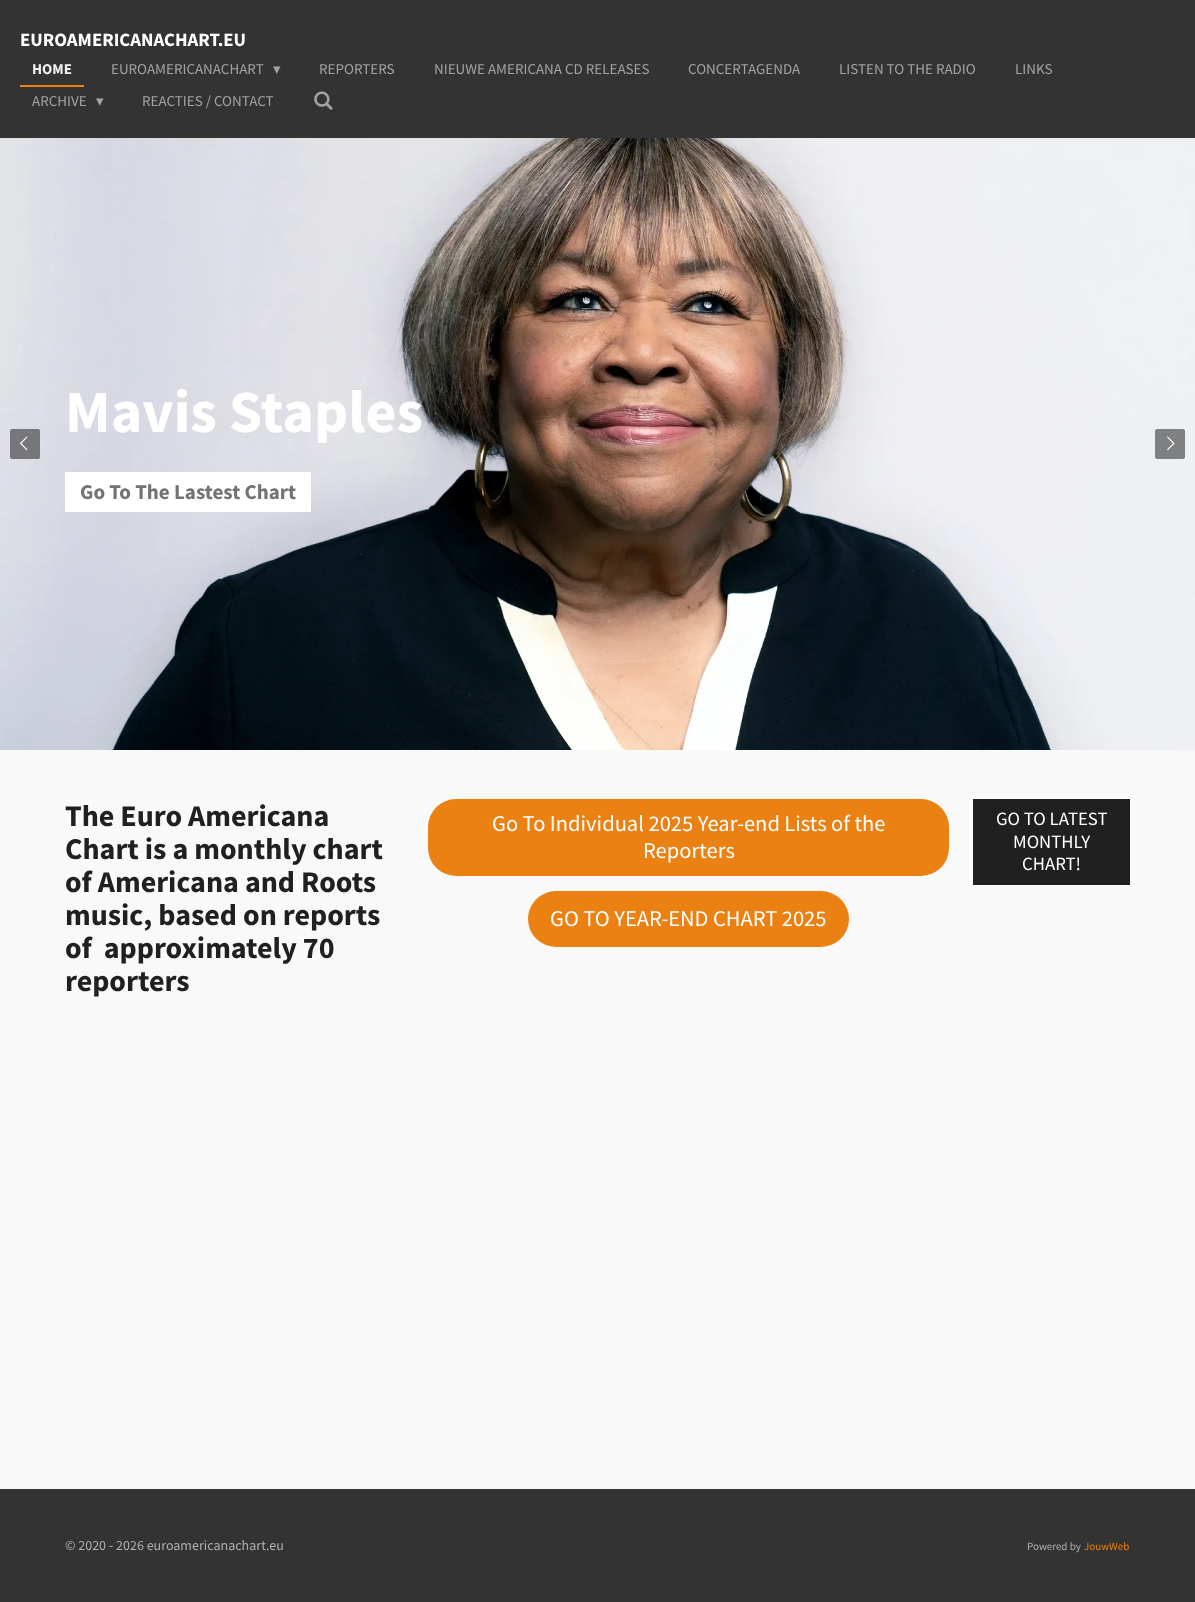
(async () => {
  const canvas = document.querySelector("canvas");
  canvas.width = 1195;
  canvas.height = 1602;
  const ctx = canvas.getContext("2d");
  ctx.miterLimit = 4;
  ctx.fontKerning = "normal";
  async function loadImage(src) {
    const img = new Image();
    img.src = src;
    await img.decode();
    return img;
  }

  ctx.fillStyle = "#333333";
  ctx.fillRect(0, 0, 1195, 1602);
  ctx.fillStyle = "#eb8113";
  ctx.fillRect(20, 85, 64, 2);
  ctx.drawImage(await loadImage("img/1.png"), 314, 91, 19, 19);
  ctx.drawImage(await loadImage("img/2.png"), 0, 138, 1195, 612);
  ctx.fillStyle = "#ffffff";
  ctx.fillRect(65, 472, 246, 40);
  ctx.fillStyle = "rgba(15, 15, 15, 0.5)";
  ctx.beginPath();
  ctx.roundRect(10, 429, 30, 30, 2);
  ctx.fill();
  ctx.drawImage(await loadImage("img/3.png"), 20, 436, 8, 15);
  ctx.fillStyle = "#7f8082";
  ctx.beginPath();
  ctx.roundRect(1155, 429, 30, 30, 2);
  ctx.fill();
  ctx.drawImage(await loadImage("img/4.png"), 1167, 436, 8, 15);
  ctx.fillStyle = "#f9f9f9";
  ctx.fillRect(0, 750, 1195, 739);
  ctx.fillStyle = "#eb8113";
  ctx.beginPath();
  ctx.roundRect(428, 799, 521, 77, 28);
  ctx.fill();
  ctx.beginPath();
  ctx.roundRect(528, 891, 321, 56, 28);
  ctx.fill();
  ctx.fillStyle = "#202020";
  ctx.fillRect(973, 799, 157, 86);
  ctx.font = "bold 18.75px Source Sans Pro";
  ctx.fillStyle = "#ffffff";
  ctx.fillText("EUROAMERICANACHART.EU", 20, 46);
  ctx.font = "bold 15px Source Sans Pro";
  ctx.fillStyle = "#f0f0f0";
  ctx.fillText("HOME", 32, 74);
  ctx.font = "15px Source Sans Pro";
  ctx.fillStyle = "#a3a3a3";
  ctx.fillText("EUROAMERICANACHART", 111, 74);
  ctx.font = "15px DejaVu Sans";
  ctx.fillText("▾", 273, 74);
  ctx.font = "15px Source Sans Pro";
  for (const [text, x, y] of [
    ["REPORTERS", 319, 74],
    ["NIEUWE AMERICANA CD RELEASES", 434, 74],
    ["CONCERTAGENDA", 688, 74],
    ["LISTEN TO THE RADIO", 839, 74],
    ["LINKS", 1015, 74],
    ["ARCHIVE", 32, 106],
  ]) {
    ctx.fillText(text, x, y);
  }
  ctx.font = "15px DejaVu Sans";
  ctx.fillText("▾", 96, 106);
  ctx.font = "15px Source Sans Pro";
  ctx.fillText("REACTIES / CONTACT", 142, 106);
  ctx.font = "bold 60px Source Sans Pro";
  ctx.fillStyle = "#ffffff";
  ctx.fillText("Mavis Staples", 65, 432);
  ctx.font = "bold 21px Source Sans Pro";
  ctx.fillStyle = "#737373";
  ctx.fillText("Go To The Lastest Chart", 80, 499);
  ctx.font = "bold 30px Source Sans Pro";
  ctx.fillStyle = "#202020";
  for (const [text, x, y] of [
    ["The Euro Americana", 65, 826],
    ["Chart is a monthly chart", 65, 859],
    ["of Americana and Roots", 65, 892],
    ["music, based on reports", 65, 925],
    ["of  approximately 70", 65, 958],
    ["reporters", 65, 991],
  ]) {
    ctx.fillText(text, x, y);
  }
  ctx.font = "22.5px Source Sans Pro";
  ctx.fillStyle = "#ffffff";
  for (const [text, x, y] of [
    ["Go To Individual 2025 Year-end Lists of the", 492, 831],
    ["Reporters", 643, 858],
    ["GO TO YEAR-END CHART 2025", 550, 926],
  ]) {
    ctx.fillText(text, x, y);
  }
  ctx.font = "18.75px Source Sans Pro";
  for (const [text, x, y] of [
    ["GO TO LATEST", 996, 825],
    ["MONTHLY", 1013, 848],
    ["CHART!", 1022, 870],
  ]) {
    ctx.fillText(text, x, y);
  }
  ctx.font = "14px Source Sans Pro";
  ctx.fillStyle = "#b1b0ac";
  ctx.fillText("© 2020 - 2026 euroamericanachart.eu", 65, 1550);
  ctx.font = "11px Source Sans Pro";
  ctx.fillText("Powered by", 1027, 1550);
  ctx.fillStyle = "#eb8113";
  ctx.fillText("JouwWeb", 1084, 1550);
})();
